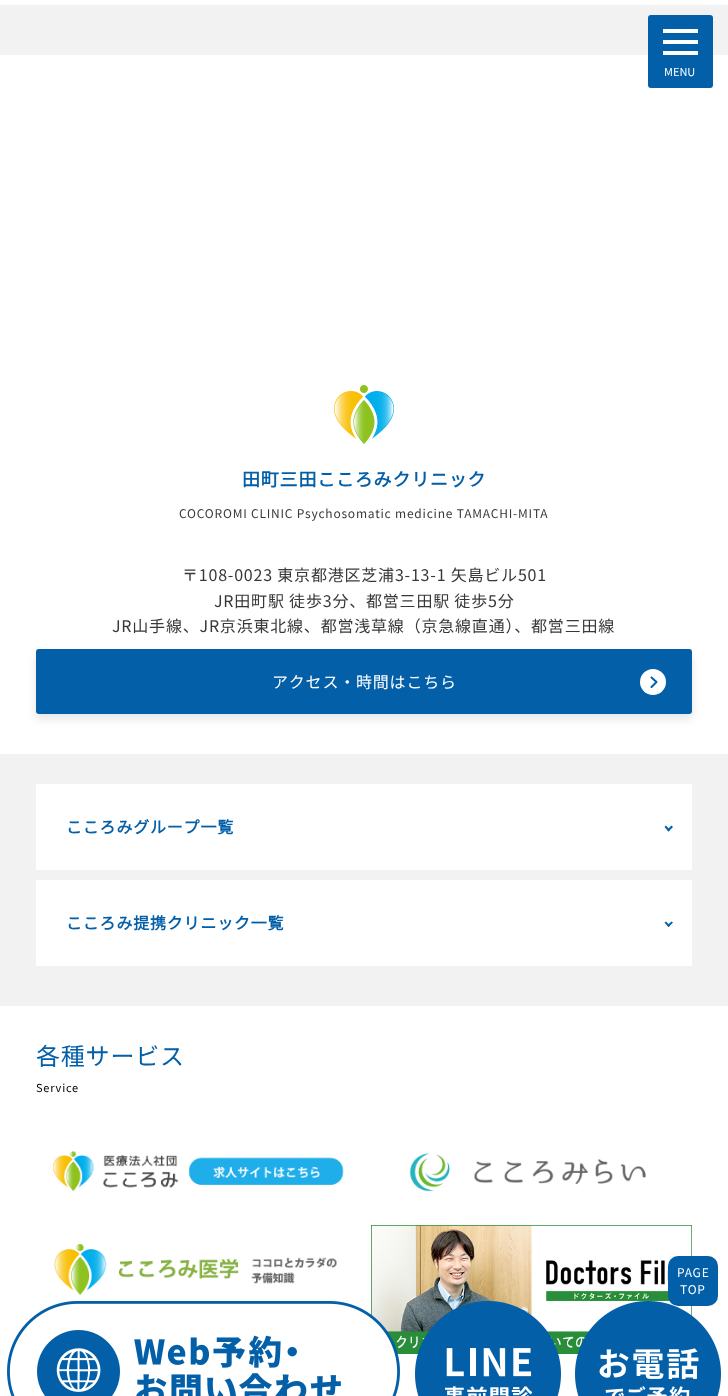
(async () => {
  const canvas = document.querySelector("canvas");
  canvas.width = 728;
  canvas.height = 1396;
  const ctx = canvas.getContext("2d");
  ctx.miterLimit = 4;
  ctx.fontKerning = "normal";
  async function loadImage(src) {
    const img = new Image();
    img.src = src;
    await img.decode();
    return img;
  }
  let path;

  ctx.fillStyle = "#f2f2f2";
  ctx.fillRect(0, 0, 728, 1396);
  ctx.fillStyle = "#ffffff";
  ctx.fillRect(0, 0, 728, 5);
  ctx.fillRect(0, 55, 728, 699);
  ctx.fillStyle = "#035fa8";
  ctx.beginPath();
  ctx.roundRect(648, 15, 65, 73, 3);
  ctx.fill();
  for (const [x, y, w, h, color] of [
    [663, 29, 35, 4, "#ffffff"],
    [663, 40, 35, 4, "#ffffff"],
    [663, 51, 35, 4, "#ffffff"],
  ]) {
    ctx.fillStyle = color;
    ctx.fillRect(x, y, w, h);
  }
  ctx.drawImage(await loadImage("img/1.png"), 334, 385, 60, 59);
  ctx.fillStyle = "rgba(0, 0, 0, 0.1)";
  ctx.filter = "blur(5px)";
  ctx.beginPath();
  ctx.roundRect(36, 654, 656, 65, 3);
  ctx.fill();
  ctx.filter = "none";
  ctx.fillStyle = "#035fa8";
  ctx.beginPath();
  ctx.roundRect(36, 649, 656, 65, 3);
  ctx.fill();
  ctx.fillStyle = "#ffffff";
  ctx.beginPath();
  ctx.arc(653, 682, 13, 0, Math.PI * 2);
  ctx.fill();
  path = new Path2D("M651.5 677.5L656.5 682L651.5 687");
  ctx.strokeStyle = "#035fa8";
  ctx.lineWidth = 2;
  ctx.lineCap = "round";
  ctx.lineJoin = "round";
  ctx.stroke(path);
  ctx.fillRect(36, 784, 656, 86);
  ctx.fillStyle = "#035fa8";
  path = new Path2D("M673 827L668.5 831.5L667 830L671.5 825.5Z");
  ctx.fill(path);
  path = new Path2D("M670 830L668.5 831.5L664.5 827L666 825.5Z");
  ctx.fill(path);
  ctx.fillStyle = "#ffffff";
  ctx.fillRect(36, 880, 656, 86);
  ctx.fillStyle = "#035fa8";
  path = new Path2D("M673 922.5L668.5 927L667 925.5L671.5 921.5Z");
  ctx.fill(path);
  path = new Path2D("M670 925.5L668.5 927L664.5 922.5L666 921.5Z");
  ctx.fill(path);
  ctx.fillStyle = "#ffffff";
  ctx.fillRect(0, 1006, 728, 390);
  ctx.drawImage(await loadImage("img/2.png"), 52, 1150, 292, 41);
  ctx.drawImage(await loadImage("img/3.png"), 409, 1153, 237, 39);
  ctx.drawImage(await loadImage("img/4.png"), 54, 1244, 283, 51);
  ctx.drawImage(await loadImage("img/5.png"), 371, 1225, 321, 129);
  ctx.drawImage(await loadImage("img/8.png"), 575, 1301, 146, 95);
  ctx.fillStyle = "#035fa8";
  ctx.beginPath();
  ctx.roundRect(668, 1256, 50, 50, 10);
  ctx.fill();
  ctx.drawImage(await loadImage("img/6.png"), 7, 1301, 393, 95);
  ctx.drawImage(await loadImage("img/7.png"), 415, 1301, 146, 95);
  ctx.font = "100 11px Noto Sans JP";
  ctx.fillStyle = "#ffffff";
  ctx.fillText("MENU", 664, 76);
  ctx.letterSpacing = "0.8px";
  ctx.font = "bold 18px Noto Sans JP";
  ctx.fillStyle = "#035fa8";
  ctx.fillText("田町三田こころみクリニック", 242, 486);
  ctx.font = "100 12px Noto Sans JP";
  ctx.fillStyle = "#383838";
  ctx.fillText("COCOROMI CLINIC Psychosomatic medicine TAMACHI-MITA", 179, 518);
  ctx.font = "100 16px Noto Sans JP";
  for (const [text, x, y] of [
    ["〒108-0023 東京都港区芝浦3-13-1 矢島ビル501", 182, 581],
    ["JR田町駅 徒歩3分、都営三田駅 徒歩5分", 214, 607],
    ["JR山手線、JR京浜東北線、都営浅草線（京急線直通）、都営三田線", 112, 632],
  ]) {
    ctx.fillText(text, x, y);
  }
  ctx.fillStyle = "#ffffff";
  ctx.fillText("アクセス・時間はこちら", 272, 688);
  ctx.font = "bold 16px Noto Sans JP";
  ctx.fillStyle = "#035fa8";
  ctx.fillText("こころみグループ一覧", 66, 833);
  ctx.fillText("こころみ提携クリニック一覧", 66, 929);
  ctx.font = "100 24px Noto Sans JP";
  ctx.fillText("各種サービス", 36, 1065);
  ctx.font = "100 11px Noto Sans JP";
  ctx.fillStyle = "#000000";
  ctx.fillText("Service", 36, 1092);
  ctx.font = "100 12px Noto Sans JP";
  ctx.fillStyle = "#ffffff";
  ctx.fillText("PAGE", 677, 1277);
  ctx.fillText("TOP", 680, 1294);
})();
